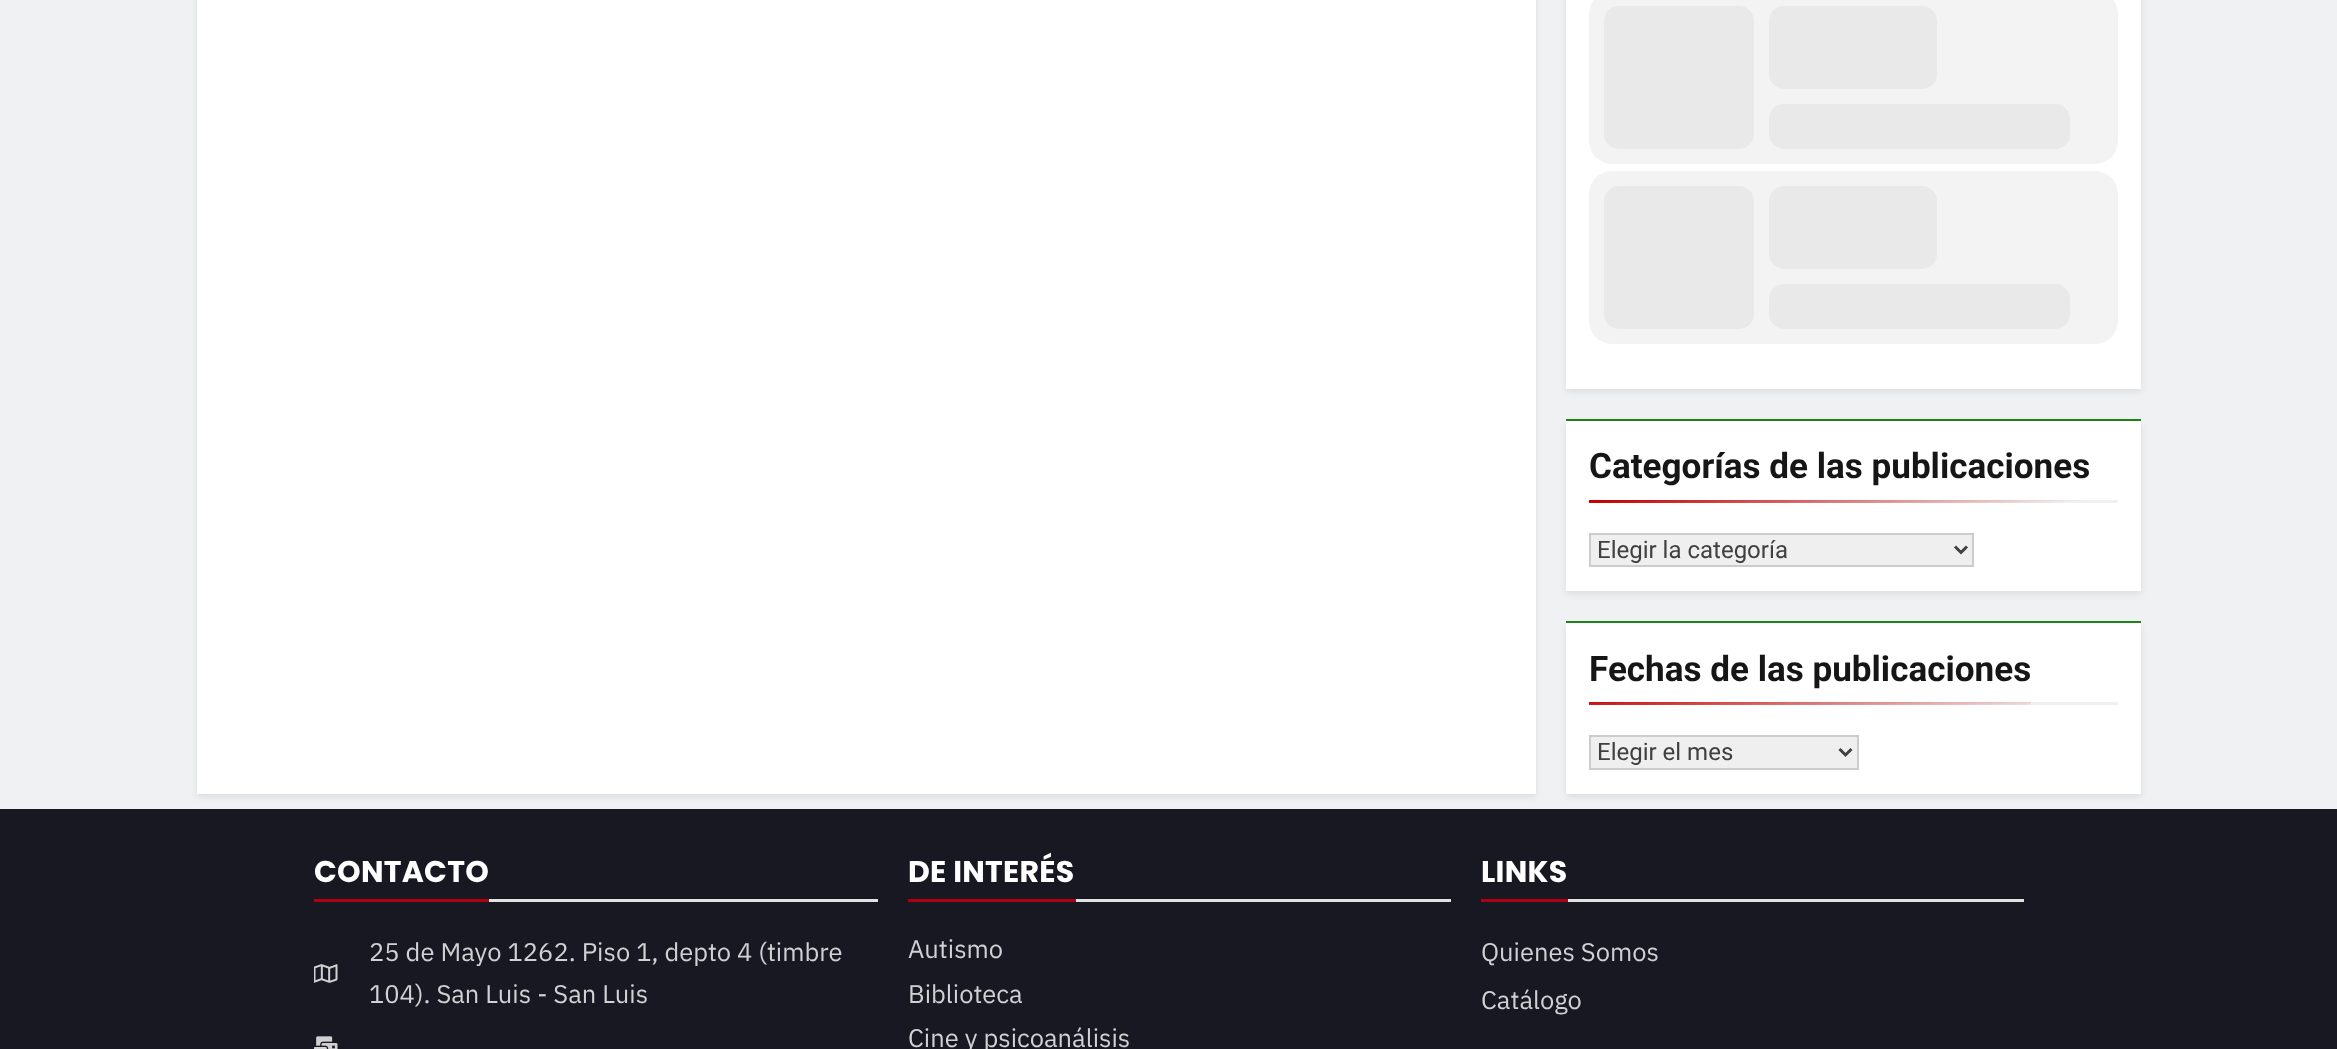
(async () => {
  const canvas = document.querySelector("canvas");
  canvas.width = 2337;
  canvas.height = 1049;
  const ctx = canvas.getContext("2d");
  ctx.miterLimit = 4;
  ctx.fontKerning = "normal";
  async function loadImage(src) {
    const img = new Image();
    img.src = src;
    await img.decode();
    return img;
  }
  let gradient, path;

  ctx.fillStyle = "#f0f1f2";
  ctx.fillRect(0, 0, 2337, 1049);
  ctx.fillStyle = "rgba(0, 0, 0, 0.08)";
  ctx.filter = "blur(3px)";
  ctx.beginPath();
  ctx.rect(197, -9, 1339, 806);
  ctx.fill();
  ctx.filter = "none";
  ctx.fillStyle = "#ffffff";
  ctx.fillRect(197, 0, 1339, 794);
  ctx.fillStyle = "rgba(0, 0, 0, 0.08)";
  ctx.filter = "blur(3px)";
  ctx.beginPath();
  ctx.rect(1566, -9, 575, 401);
  ctx.fill();
  ctx.filter = "none";
  ctx.fillStyle = "#ffffff";
  ctx.fillRect(1566, 0, 575, 389);
  ctx.fillStyle = "#f3f3f3";
  ctx.beginPath();
  ctx.roundRect(1589, -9, 529, 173, 23);
  ctx.fill();
  ctx.fillStyle = "#e9e9e9";
  ctx.beginPath();
  ctx.roundRect(1604, 6, 150, 143, 15);
  ctx.fill();
  ctx.beginPath();
  ctx.roundRect(1769, 6, 168, 83, 15);
  ctx.fill();
  ctx.beginPath();
  ctx.roundRect(1769, 104, 301, 45, 15);
  ctx.fill();
  ctx.fillStyle = "#f3f3f3";
  ctx.beginPath();
  ctx.roundRect(1589, 171, 529, 173, 23);
  ctx.fill();
  ctx.fillStyle = "#e9e9e9";
  ctx.beginPath();
  ctx.roundRect(1604, 186, 150, 143, 15);
  ctx.fill();
  ctx.beginPath();
  ctx.roundRect(1769, 186, 168, 83, 15);
  ctx.fill();
  ctx.beginPath();
  ctx.roundRect(1769, 284, 301, 45, 15);
  ctx.fill();
  ctx.fillStyle = "rgba(0, 0, 0, 0.08)";
  ctx.filter = "blur(3px)";
  ctx.beginPath();
  ctx.rect(1566, 423, 575, 171);
  ctx.fill();
  ctx.filter = "none";
  for (const [x, y, w, h, color] of [
    [1566, 421, 575, 170, "#ffffff"],
    [1566, 419, 575, 2, "#1b8415"],
    [2091, 500, 27, 3, "#f0f0f0"],
  ]) {
    ctx.fillStyle = color;
    ctx.fillRect(x, y, w, h);
  }
  gradient = ctx.createLinearGradient(1838, 482, 1841, 520);
  gradient.addColorStop(0, "#c20000");
  gradient.addColorStop(1, "#f0f0f0");
  ctx.fillStyle = gradient;
  ctx.fillRect(1589, 500, 502, 3);
  ctx.fillStyle = "#efefef";
  ctx.beginPath();
  ctx.rect(1590, 534, 383, 32);
  ctx.fill();
  ctx.strokeStyle = "#cccccc";
  ctx.lineWidth = 2;
  ctx.stroke();
  path = new Path2D("M1955 546.5L1961 552.5L1967 546.5");
  ctx.strokeStyle = "#404040";
  ctx.lineWidth = 3;
  ctx.stroke(path);
  ctx.fillStyle = "rgba(0, 0, 0, 0.08)";
  ctx.filter = "blur(3px)";
  ctx.beginPath();
  ctx.rect(1566, 626, 575, 171);
  ctx.fill();
  ctx.filter = "none";
  for (const [x, y, w, h, color] of [
    [1566, 623, 575, 171, "#ffffff"],
    [1566, 621, 575, 2, "#1b8415"],
    [2031, 702, 87, 3, "#f0f0f0"],
  ]) {
    ctx.fillStyle = color;
    ctx.fillRect(x, y, w, h);
  }
  gradient = ctx.createLinearGradient(1809, 687, 1811, 720);
  gradient.addColorStop(0, "#c20000");
  gradient.addColorStop(1, "#f0f0f0");
  ctx.fillStyle = gradient;
  ctx.fillRect(1589, 702, 442, 3);
  ctx.fillStyle = "#efefef";
  ctx.beginPath();
  ctx.rect(1590, 736, 268, 33);
  ctx.fill();
  ctx.strokeStyle = "#cccccc";
  ctx.lineWidth = 2;
  ctx.stroke();
  path = new Path2D("M1839.5 749L1845.5 755L1851.5 749");
  ctx.strokeStyle = "#404040";
  ctx.lineWidth = 3;
  ctx.stroke(path);
  for (const [x, y, w, h, color] of [
    [0, 809, 2337, 240, "#181823"],
    [489, 899, 389, 3, "#e2e2e2"],
    [314, 899, 175, 3, "#b30010"],
  ]) {
    ctx.fillStyle = color;
    ctx.fillRect(x, y, w, h);
  }
  ctx.drawImage(await loadImage("img/1.png"), 314, 964, 24, 19);
  ctx.drawImage(await loadImage("img/2.png"), 314, 1036, 24, 13);
  for (const [x, y, w, h, color] of [
    [1076, 899, 375, 3, "#e2e2e2"],
    [908, 899, 168, 3, "#b30010"],
    [1568, 899, 456, 3, "#e2e2e2"],
    [1481, 899, 87, 3, "#b30010"],
  ]) {
    ctx.fillStyle = color;
    ctx.fillRect(x, y, w, h);
  }
  ctx.font = "bold 35.1px Roboto";
  ctx.fillStyle = "#161616";
  ctx.fillText("Categorías de las publicaciones", 1589, 478);
  ctx.font = "24px Roboto";
  ctx.fillStyle = "#404040";
  ctx.fillText("Elegir la categoría", 1597, 558);
  ctx.font = "bold 35.1px Roboto";
  ctx.fillStyle = "#161616";
  ctx.fillText("Fechas de las publicaciones", 1589, 681);
  ctx.font = "24px Roboto";
  ctx.fillStyle = "#404040";
  ctx.fillText("Elegir el mes", 1597, 760);
  ctx.letterSpacing = "0.25px";
  ctx.font = "bold 30px Poppins";
  ctx.fillStyle = "#ffffff";
  ctx.fillText("CONTACTO", 314, 882);
  ctx.letterSpacing = "0px";
  ctx.font = "25.5px IBM Plex Sans";
  ctx.fillStyle = "#d1d1d3";
  ctx.fillText("25 de Mayo 1262. Piso 1, depto 4 (timbre", 369, 961);
  ctx.fillText("104). San Luis - San Luis", 369, 1003);
  ctx.letterSpacing = "0.25px";
  ctx.font = "bold 30px Poppins";
  ctx.fillStyle = "#ffffff";
  ctx.fillText("DE INTERÉS", 908, 882);
  ctx.letterSpacing = "0px";
  ctx.font = "25.5px IBM Plex Sans";
  ctx.fillStyle = "#d1d1d3";
  for (const [text, x, y] of [
    ["Autismo", 908, 958],
    ["Biblioteca", 908, 1003],
    ["Cine y psicoanálisis", 908, 1047],
  ]) {
    ctx.fillText(text, x, y);
  }
  ctx.letterSpacing = "0.25px";
  ctx.font = "bold 30px Poppins";
  ctx.fillStyle = "#ffffff";
  ctx.fillText("LINKS", 1481, 882);
  ctx.letterSpacing = "0px";
  ctx.font = "25.5px IBM Plex Sans";
  ctx.fillStyle = "#d1d1d3";
  ctx.fillText("Quienes Somos", 1481, 961);
  ctx.fillText("Catálogo", 1481, 1009);
})();
